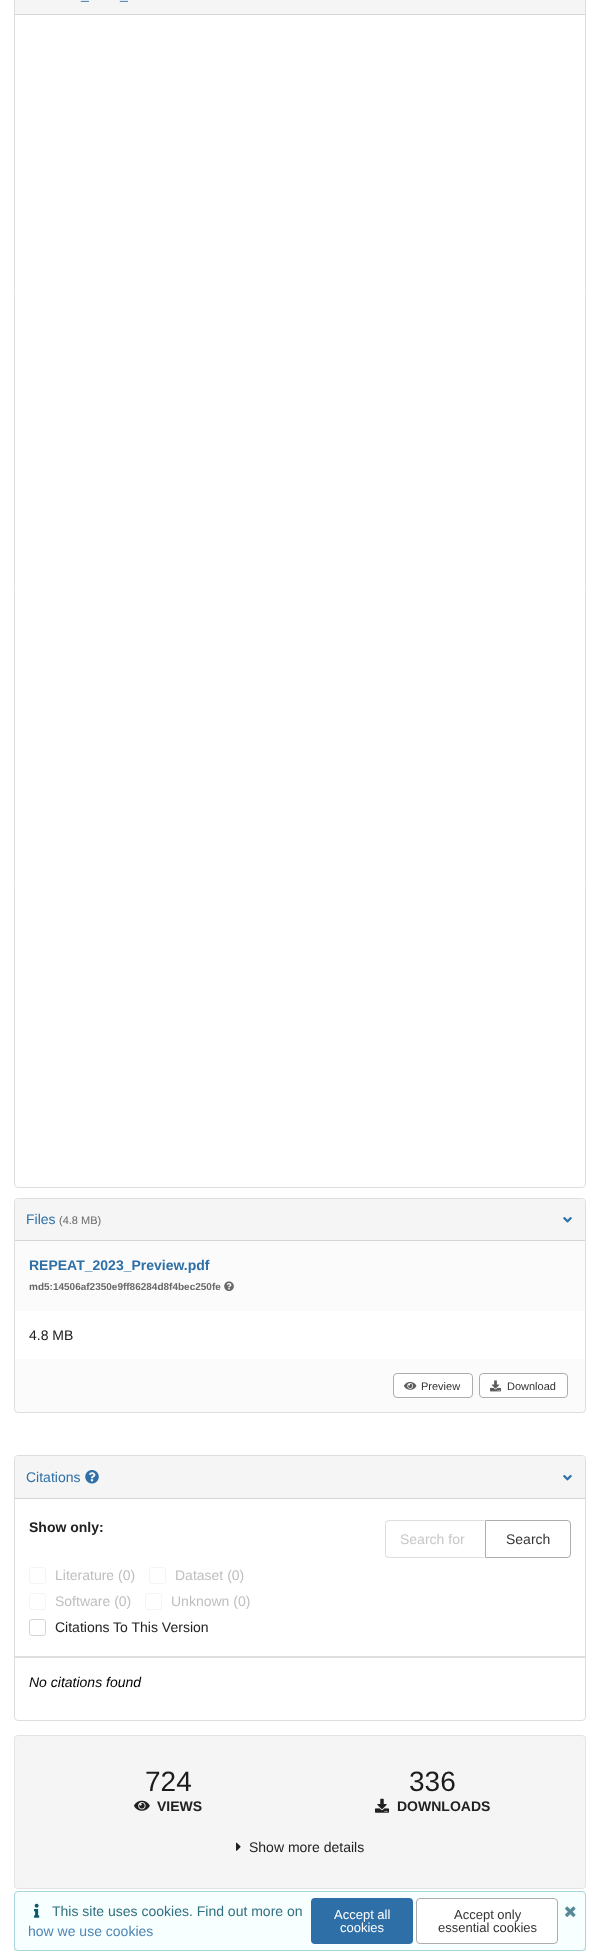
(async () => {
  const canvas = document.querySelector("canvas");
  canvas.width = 600;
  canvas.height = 1951;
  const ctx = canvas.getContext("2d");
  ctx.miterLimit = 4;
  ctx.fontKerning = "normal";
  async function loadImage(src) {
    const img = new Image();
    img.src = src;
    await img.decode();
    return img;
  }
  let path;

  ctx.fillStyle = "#ffffff";
  ctx.fillRect(0, 0, 600, 1951);
  ctx.beginPath();
  ctx.roundRect(14.5, -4.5, 571, 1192, 3.5);
  ctx.strokeStyle = "#dedede";
  ctx.stroke();
  ctx.fillStyle = "#f5f5f5";
  ctx.fillRect(15, 0, 570, 14);
  ctx.fillStyle = "#d5d6d6";
  ctx.fillRect(15, 14, 570, 1);
  ctx.beginPath();
  ctx.roundRect(14.5, 1198.5, 571, 214, 3.5);
  ctx.stroke();
  ctx.fillStyle = "#f5f5f5";
  ctx.beginPath();
  ctx.roundRect(15, 1199, 570, 42, [4, 4, 0, 0]);
  ctx.fill();
  ctx.fillStyle = "#d5d6d6";
  ctx.fillRect(15, 1240, 570, 1);
  ctx.drawImage(await loadImage("img/1.png"), 563, 1217, 9, 6);
  ctx.fillStyle = "#fbfbfb";
  ctx.fillRect(15, 1241, 570, 70);
  ctx.drawImage(await loadImage("img/2.png"), 224, 1281, 10, 11);
  ctx.fillStyle = "rgba(226, 226, 228, 0.15)";
  ctx.fillRect(15, 1359, 570, 53);
  ctx.fillStyle = "#ffffff";
  ctx.beginPath();
  ctx.roundRect(393.5, 1373.5, 79, 24, 3.5);
  ctx.fill();
  ctx.strokeStyle = "#adadad";
  ctx.stroke();
  ctx.drawImage(await loadImage("img/3.png"), 404, 1381, 13, 9);
  ctx.beginPath();
  ctx.roundRect(479.5, 1373.5, 88, 24, 3.5);
  ctx.fill();
  ctx.stroke();
  ctx.drawImage(await loadImage("img/4.png"), 490, 1380, 11, 12);
  ctx.beginPath();
  ctx.roundRect(14.5, 1455.5, 571, 265, 3.5);
  ctx.strokeStyle = "#dedede";
  ctx.stroke();
  ctx.fillStyle = "#f5f5f5";
  ctx.beginPath();
  ctx.roundRect(15, 1456, 570, 43, [4, 4, 0, 0]);
  ctx.fill();
  ctx.fillStyle = "#d5d6d6";
  ctx.fillRect(15, 1498, 570, 1);
  ctx.drawImage(await loadImage("img/5.png"), 85, 1470, 14, 14);
  ctx.drawImage(await loadImage("img/6.png"), 563, 1474, 9, 7);
  ctx.beginPath();
  ctx.roundRect(29.5, 1567.5, 16, 16, 2.5);
  ctx.strokeStyle = "#f4f4f5";
  ctx.stroke();
  ctx.beginPath();
  ctx.roundRect(149.5, 1567.5, 16, 16, 2.5);
  ctx.stroke();
  ctx.beginPath();
  ctx.roundRect(29.5, 1593.5, 16, 16, 2.5);
  ctx.stroke();
  ctx.beginPath();
  ctx.roundRect(145.5, 1593.5, 16, 16, 2.5);
  ctx.stroke();
  ctx.beginPath();
  ctx.roundRect(29.5, 1619.5, 16, 16, 2.5);
  ctx.strokeStyle = "#d4d4d5";
  ctx.stroke();
  ctx.fillStyle = "#dedede";
  path = new Path2D("M389 1520L386 1521L387 1522L389 1521H484L485 1520Z");
  ctx.fill(path);
  path = new Path2D("M485 1558L484 1557H389L387 1556L386 1557L389 1558Z");
  ctx.fill(path);
  ctx.fillStyle = "rgba(34, 36, 38, 0.15)";
  path = new Path2D("M385 1524V1554C385 1555 385.5 1556 386 1557L387 1556C386 1556 386 1555 386 1554V1524C386 1523 386 1522 387 1522L386 1521C385.5 1522 385 1523 385 1524Z");
  ctx.fill(path);
  ctx.beginPath();
  ctx.roundRect(485.5, 1520.5, 85, 37, [0, 3.5, 3.5, 0]);
  ctx.strokeStyle = "#adadad";
  ctx.stroke();
  ctx.fillStyle = "#dedede";
  ctx.fillRect(15, 1656, 570, 2);
  ctx.fillStyle = "#f5f5f5";
  ctx.beginPath();
  ctx.roundRect(14.5, 1735.5, 571, 153, 3.5);
  ctx.fill();
  ctx.strokeStyle = "#e3e3e3";
  ctx.stroke();
  ctx.drawImage(await loadImage("img/7.png"), 134, 1800, 16, 11);
  ctx.drawImage(await loadImage("img/8.png"), 375, 1798, 14, 15);
  ctx.drawImage(await loadImage("img/9.png"), 236, 1842, 5, 9);
  ctx.fillRect(15, 1949, 570, 2);
  ctx.strokeRect(14.5, 1903.5, 571, 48);
  ctx.fillStyle = "#f8ffff";
  ctx.beginPath();
  ctx.roundRect(14.5, 1891.5, 571, 59, 3.5);
  ctx.fill();
  ctx.strokeStyle = "#a9d5de";
  ctx.stroke();
  ctx.drawImage(await loadImage("img/10.png"), 34, 1903, 6, 15);
  ctx.fillStyle = "#2f6fa7";
  ctx.beginPath();
  ctx.roundRect(311, 1898, 102, 46, 4);
  ctx.fill();
  ctx.fillStyle = "#ffffff";
  ctx.beginPath();
  ctx.roundRect(416.5, 1898.5, 141, 45, 3.5);
  ctx.fill();
  ctx.strokeStyle = "#adadad";
  ctx.stroke();
  ctx.drawImage(await loadImage("img/11.png"), 565, 1906, 11, 11);
  ctx.font = "14px Liberation Sans";
  ctx.fillStyle = "#2f6fa7";
  for (const [text, x, y] of [
    ["_", 81, -1],
    ["_", 120, -1],
    ["Files", 26, 1224],
  ]) {
    ctx.fillText(text, x, y);
  }
  ctx.font = "11px Liberation Sans";
  ctx.fillStyle = "#696969";
  ctx.fillText("(4.8 MB)", 59, 1224);
  ctx.font = "bold 14px Liberation Sans";
  ctx.fillStyle = "#2f6fa7";
  ctx.fillText("REPEAT_2023_Preview.pdf", 29, 1270);
  ctx.font = "bold 10px Liberation Sans";
  ctx.fillStyle = "#696969";
  ctx.fillText("md5:14506af2350e9ff86284d8f4bec250fe", 29, 1290);
  ctx.font = "14px Liberation Sans";
  ctx.fillStyle = "#212121";
  ctx.fillText("4.8 MB", 29, 1340);
  ctx.font = "11px Liberation Sans";
  ctx.fillStyle = "#333333";
  ctx.fillText("Preview", 421, 1390);
  ctx.fillText("Download", 507, 1390);
  ctx.font = "14px Liberation Sans";
  ctx.fillStyle = "#2f6fa7";
  ctx.fillText("Citations", 26, 1482);
  ctx.font = "bold 14px Liberation Sans";
  ctx.fillStyle = "#212121";
  ctx.fillText("Show only:", 29, 1532);
  ctx.font = "14px Liberation Sans";
  ctx.fillStyle = "#bfbfbf";
  for (const [text, x, y] of [
    ["Literature (0)", 55, 1580],
    ["Dataset (0)", 175, 1580],
    ["Software (0)", 55, 1606],
    ["Unknown (0)", 171, 1606],
  ]) {
    ctx.fillText(text, x, y);
  }
  ctx.fillStyle = "#212121";
  ctx.fillText("Citations To This Version", 55, 1632);
  ctx.fillStyle = "#c7c7c7";
  ctx.fillText("Search for", 400, 1544);
  ctx.fillStyle = "#333333";
  ctx.fillText("Search", 506, 1544);
  ctx.font = "italic 14px Liberation Sans";
  ctx.fillStyle = "#000000";
  ctx.fillText("No citations found", 29, 1687);
  ctx.font = "28px Liberation Sans";
  ctx.fillStyle = "#1b1c1d";
  ctx.fillText("724", 145, 1791);
  ctx.font = "bold 14px Liberation Sans";
  ctx.fillStyle = "#212121";
  ctx.fillText("VIEWS", 157, 1811);
  ctx.font = "28px Liberation Sans";
  ctx.fillStyle = "#1b1c1d";
  ctx.fillText("336", 409, 1791);
  ctx.font = "bold 14px Liberation Sans";
  ctx.fillStyle = "#212121";
  ctx.fillText("DOWNLOADS", 397, 1811);
  ctx.font = "14px Liberation Sans";
  ctx.fillText("Show more details", 249, 1852);
  ctx.fillStyle = "#317082";
  ctx.fillText("This site uses cookies. Find out more on", 52, 1916);
  ctx.fillStyle = "#4d85b4";
  ctx.fillText("how we use cookies", 28, 1936);
  ctx.font = "13px Liberation Sans";
  ctx.fillStyle = "#ffffff";
  ctx.fillText("Accept all", 334, 1919);
  ctx.fillText("cookies", 340, 1932);
  ctx.fillStyle = "#333333";
  ctx.fillText("Accept only", 454, 1919);
  ctx.fillText("essential cookies", 438, 1932);
})();
